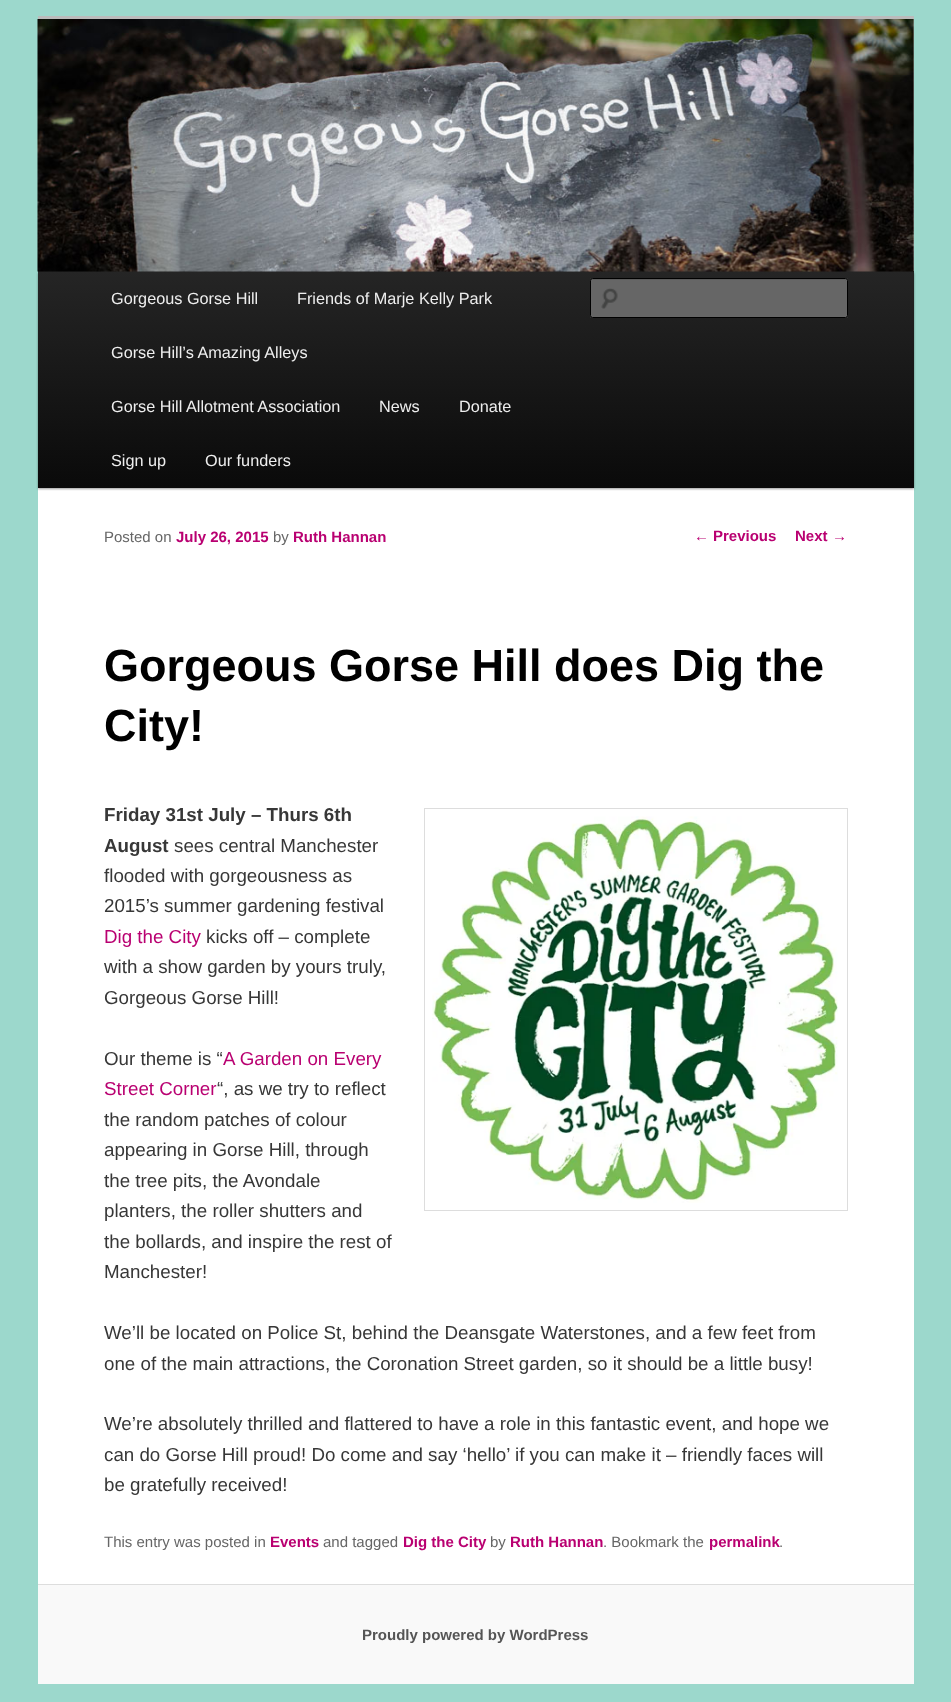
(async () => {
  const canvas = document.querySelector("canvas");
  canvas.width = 951;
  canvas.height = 1702;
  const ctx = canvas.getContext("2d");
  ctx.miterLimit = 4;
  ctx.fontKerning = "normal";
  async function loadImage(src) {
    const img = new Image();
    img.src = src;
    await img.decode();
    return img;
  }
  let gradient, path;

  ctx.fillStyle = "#9cd8cc";
  ctx.fillRect(0, 0, 951, 1702);
  ctx.fillStyle = "#ffffff";
  ctx.fillRect(38, 19, 876, 1565);
  ctx.fillStyle = "#bbbbbb";
  ctx.fillRect(38, 16, 876, 3);
  ctx.fillStyle = "rgba(0, 0, 0, 0.4)";
  ctx.filter = "blur(1px)";
  ctx.beginPath();
  ctx.rect(38, 273, 876, 216);
  ctx.fill();
  ctx.filter = "none";
  gradient = ctx.createLinearGradient(476, 271, 476, 488);
  gradient.addColorStop(0, "#252525");
  gradient.addColorStop(1, "#0a0a0a");
  ctx.fillStyle = gradient;
  ctx.fillRect(38, 271, 876, 217);
  ctx.drawImage(await loadImage("img/1.png"), 37, 19, 877, 253);
  ctx.fillStyle = "#666666";
  ctx.beginPath();
  ctx.roundRect(590, 278, 258, 40, 2.5);
  ctx.fill();
  ctx.drawImage(await loadImage("img/2.png"), 601, 288, 17, 21);
  ctx.fillStyle = "#5c5c5c";
  path = new Path2D("M592 280H845L846 281V279H592C591 279 591 280 591 281Z");
  ctx.fill(path);
  ctx.beginPath();
  ctx.roundRect(590.5, 278.5, 257, 39, 2);
  ctx.strokeStyle = "#000000";
  ctx.stroke();
  ctx.strokeStyle = "#dddddd";
  ctx.strokeRect(424.5, 808.5, 423, 402);
  ctx.drawImage(await loadImage("img/3.png"), 432, 816, 406, 387);
  ctx.fillStyle = "#f9f9f9";
  ctx.fillRect(38, 1585, 876, 99);
  ctx.fillStyle = "#dddddd";
  ctx.fillRect(38, 1584, 876, 1);
  ctx.font = "16.25px Liberation Sans";
  ctx.fillStyle = "#eeeeee";
  for (const [text, x, y] of [
    ["Gorgeous Gorse Hill", 111, 304],
    ["Friends of Marje Kelly Park", 297, 304],
    ["Gorse Hill’s Amazing Alleys", 111, 358],
    ["Gorse Hill Allotment Association", 111, 412],
    ["News", 379, 412],
    ["Donate", 459, 412],
    ["Sign up", 111, 466],
    ["Our funders", 205, 466],
  ]) {
    ctx.fillText(text, x, y);
  }
  ctx.font = "15px Liberation Sans";
  ctx.fillStyle = "#b90071";
  ctx.fillText("←", 694, 541);
  ctx.font = "bold 15px Liberation Sans";
  ctx.fillText("Previous", 713, 541);
  ctx.fillText("Next", 795, 541);
  ctx.font = "15px Liberation Sans";
  ctx.fillText("→", 832, 541);
  ctx.fillStyle = "#666666";
  ctx.fillText("Posted on", 104, 542);
  ctx.font = "bold 15px Liberation Sans";
  ctx.fillStyle = "#b90071";
  ctx.fillText("July 26, 2015", 176, 542);
  ctx.font = "15px Liberation Sans";
  ctx.fillStyle = "#666666";
  ctx.fillText("by", 273, 542);
  ctx.font = "bold 15px Liberation Sans";
  ctx.fillStyle = "#b90071";
  ctx.fillText("Ruth Hannan", 293, 542);
  ctx.font = "bold 45px Liberation Sans";
  ctx.fillStyle = "#000000";
  ctx.fillText("Gorgeous Gorse Hill does Dig the", 104, 681);
  ctx.fillText("City!", 104, 741);
  ctx.font = "bold 18.75px Liberation Sans";
  ctx.fillStyle = "#373737";
  ctx.fillText("Friday 31st July – Thurs 6th", 104, 821);
  ctx.fillText("August", 104, 852);
  ctx.font = "18.75px Liberation Sans";
  for (const [text, x, y] of [
    ["sees central Manchester", 174, 852],
    ["flooded with gorgeousness as", 104, 882],
    ["2015’s summer gardening festival", 104, 912],
  ]) {
    ctx.fillText(text, x, y);
  }
  ctx.fillStyle = "#b90071";
  ctx.fillText("Dig the City", 104, 943);
  ctx.fillStyle = "#373737";
  for (const [text, x, y] of [
    ["kicks off – complete", 206, 943],
    ["with a show garden by yours truly,", 104, 973],
    ["Gorgeous Gorse Hill!", 104, 1004],
    ["Our theme is “", 104, 1065],
  ]) {
    ctx.fillText(text, x, y);
  }
  ctx.fillStyle = "#b90071";
  ctx.fillText("A Garden on Every", 223, 1065);
  ctx.fillText("Street Corner", 104, 1095);
  ctx.fillStyle = "#373737";
  for (const [text, x, y] of [
    ["“, as we try to reflect", 217, 1095],
    ["the random patches of colour", 104, 1126],
    ["appearing in Gorse Hill, through", 104, 1156],
    ["the tree pits, the Avondale", 104, 1187],
    ["planters, the roller shutters and", 104, 1217],
    ["the bollards, and inspire the rest of", 104, 1248],
    ["Manchester!", 104, 1278],
    ["We’ll be located on Police St, behind the Deansgate Waterstones, and a few feet from", 104, 1339],
    ["one of the main attractions, the Coronation Street garden, so it should be a little busy!", 104, 1370],
    ["We’re absolutely thrilled and flattered to have a role in this fantastic event, and hope we", 104, 1430],
    ["can do Gorse Hill proud! Do come and say ‘hello’ if you can make it – friendly faces will", 104, 1461],
    ["be gratefully received!", 104, 1491],
  ]) {
    ctx.fillText(text, x, y);
  }
  ctx.font = "15px Liberation Sans";
  ctx.fillStyle = "#666666";
  ctx.fillText("This entry was posted in", 104, 1547);
  ctx.font = "bold 15px Liberation Sans";
  ctx.fillStyle = "#b90071";
  ctx.fillText("Events", 270, 1547);
  ctx.font = "15px Liberation Sans";
  ctx.fillStyle = "#666666";
  ctx.fillText("and tagged", 323, 1547);
  ctx.font = "bold 15px Liberation Sans";
  ctx.fillStyle = "#b90071";
  ctx.fillText("Dig the City", 403, 1547);
  ctx.font = "15px Liberation Sans";
  ctx.fillStyle = "#666666";
  ctx.fillText("by", 490, 1547);
  ctx.font = "bold 15px Liberation Sans";
  ctx.fillStyle = "#b90071";
  ctx.fillText("Ruth Hannan", 510, 1547);
  ctx.font = "15px Liberation Sans";
  ctx.fillStyle = "#666666";
  ctx.fillText(". Bookmark the", 603, 1547);
  ctx.font = "bold 15px Liberation Sans";
  ctx.fillStyle = "#b90071";
  ctx.fillText("permalink", 709, 1547);
  ctx.font = "15px Liberation Sans";
  ctx.fillStyle = "#666666";
  ctx.fillText(".", 779, 1547);
  ctx.font = "bold 15px Liberation Sans";
  ctx.fillStyle = "#555555";
  ctx.fillText("Proudly powered by WordPress", 362, 1640);
})();
